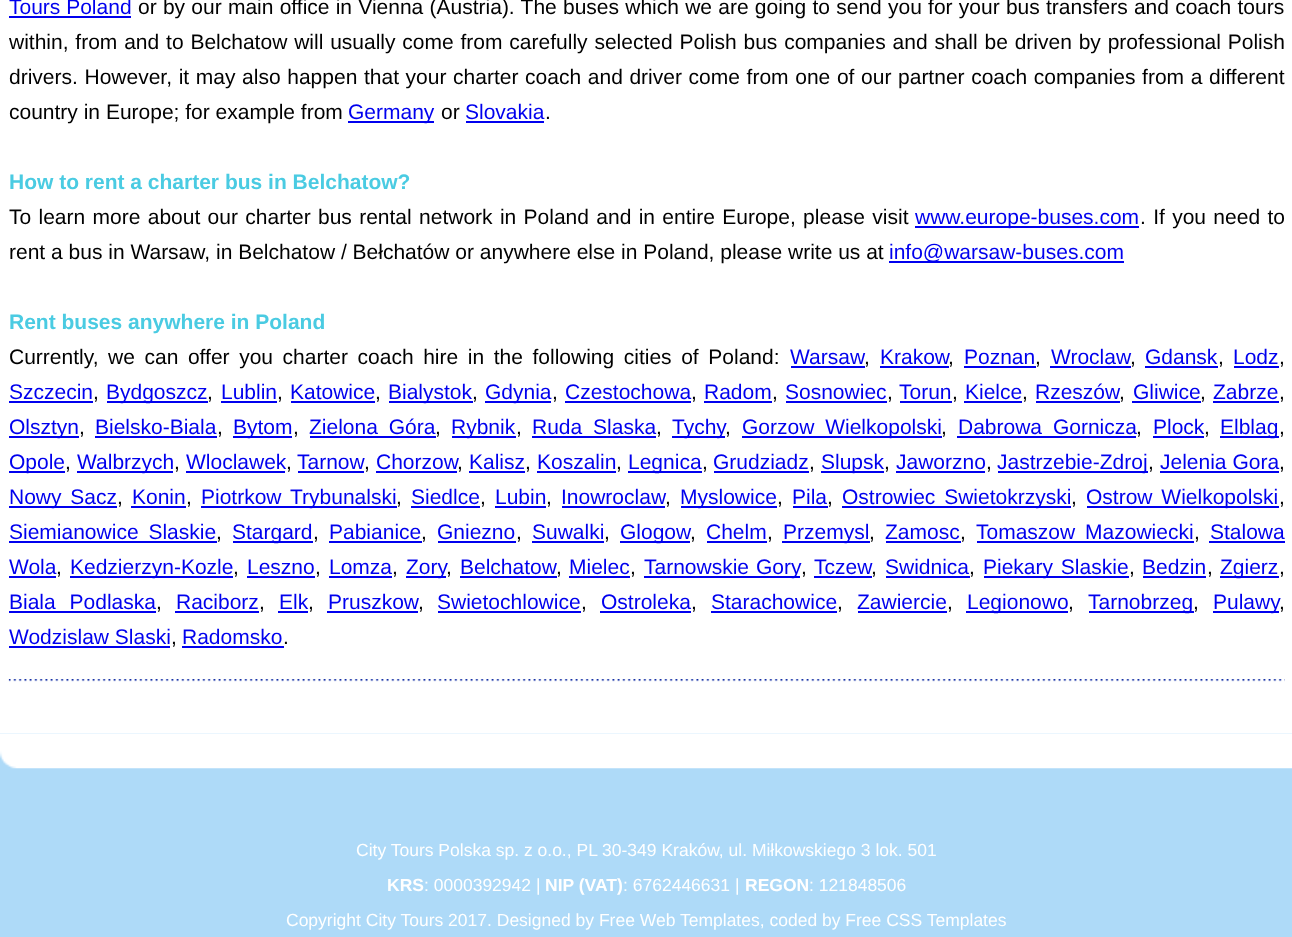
(async () => {
  const canvas = document.querySelector("canvas");
  canvas.width = 1292;
  canvas.height = 937;
  const ctx = canvas.getContext("2d");
  ctx.miterLimit = 4;
  ctx.fontKerning = "normal";
  async function loadImage(src) {
    const img = new Image();
    img.src = src;
    await img.decode();
    return img;
  }

  ctx.fillStyle = "#aedaf8";
  ctx.fillRect(0, 0, 1292, 937);
  for (const [x, y, w, h, color] of [
    [0, 0, 1292, 733, "#ffffff"],
    [9, 16, 122, 2, "#0000ee"],
    [348, 121, 86, 2, "#0000ee"],
    [466, 121, 78, 2, "#0000ee"],
    [915, 226, 224, 2, "#0000ee"],
    [889, 261, 235, 2, "#0000ee"],
    [791, 366, 74, 2, "#0000ee"],
    [880, 366, 69, 2, "#0000ee"],
    [964, 366, 72, 2, "#0000ee"],
    [1050, 366, 81, 2, "#0000ee"],
    [1145, 366, 73, 2, "#0000ee"],
    [1234, 366, 45, 2, "#0000ee"],
    [9, 401, 84, 2, "#0000ee"],
    [107, 401, 101, 2, "#0000ee"],
    [221, 401, 56, 2, "#0000ee"],
    [291, 401, 84, 2, "#0000ee"],
    [389, 401, 84, 2, "#0000ee"],
    [485, 401, 66, 2, "#0000ee"],
    [565, 401, 126, 2, "#0000ee"],
    [704, 401, 68, 2, "#0000ee"],
    [786, 401, 101, 2, "#0000ee"],
    [900, 401, 52, 2, "#0000ee"],
    [964, 401, 58, 2, "#0000ee"],
    [1036, 401, 84, 2, "#0000ee"],
    [1132, 401, 69, 2, "#0000ee"],
    [1213, 401, 66, 2, "#0000ee"],
    [9, 436, 70, 2, "#0000ee"],
    [95, 436, 122, 2, "#0000ee"],
    [233, 436, 59, 2, "#0000ee"],
    [310, 436, 126, 2, "#0000ee"],
    [452, 436, 64, 2, "#0000ee"],
    [532, 436, 124, 2, "#0000ee"],
    [672, 436, 53, 2, "#0000ee"],
    [742, 436, 200, 2, "#0000ee"],
    [957, 436, 179, 2, "#0000ee"],
    [1153, 436, 51, 2, "#0000ee"],
    [1220, 436, 59, 2, "#0000ee"],
    [9, 471, 56, 2, "#0000ee"],
    [77, 471, 96, 2, "#0000ee"],
    [186, 471, 99, 2, "#0000ee"],
    [298, 471, 66, 2, "#0000ee"],
    [376, 471, 81, 2, "#0000ee"],
    [469, 471, 56, 2, "#0000ee"],
    [537, 471, 79, 2, "#0000ee"],
    [628, 471, 74, 2, "#0000ee"],
    [714, 471, 95, 2, "#0000ee"],
    [821, 471, 63, 2, "#0000ee"],
    [896, 471, 89, 2, "#0000ee"],
    [998, 471, 150, 2, "#0000ee"],
    [1160, 471, 119, 2, "#0000ee"],
    [9, 506, 108, 2, "#0000ee"],
    [131, 506, 55, 2, "#0000ee"],
    [201, 506, 196, 2, "#0000ee"],
    [411, 506, 69, 2, "#0000ee"],
    [495, 506, 51, 2, "#0000ee"],
    [562, 506, 103, 2, "#0000ee"],
    [681, 506, 96, 2, "#0000ee"],
    [793, 506, 35, 2, "#0000ee"],
    [842, 506, 229, 2, "#0000ee"],
    [1087, 506, 192, 2, "#0000ee"],
    [9, 541, 208, 2, "#0000ee"],
    [233, 541, 80, 2, "#0000ee"],
    [329, 541, 93, 2, "#0000ee"],
    [438, 541, 78, 2, "#0000ee"],
    [532, 541, 72, 2, "#0000ee"],
    [620, 541, 70, 2, "#0000ee"],
    [707, 541, 60, 2, "#0000ee"],
    [782, 541, 88, 2, "#0000ee"],
    [886, 541, 75, 2, "#0000ee"],
    [977, 541, 217, 2, "#0000ee"],
    [1209, 541, 76, 2, "#0000ee"],
    [9, 576, 47, 2, "#0000ee"],
    [70, 576, 163, 2, "#0000ee"],
    [247, 576, 68, 2, "#0000ee"],
    [329, 576, 63, 2, "#0000ee"],
    [406, 576, 40, 2, "#0000ee"],
    [460, 576, 97, 2, "#0000ee"],
    [569, 576, 61, 2, "#0000ee"],
    [644, 576, 156, 2, "#0000ee"],
    [814, 576, 58, 2, "#0000ee"],
    [886, 576, 84, 2, "#0000ee"],
    [984, 576, 145, 2, "#0000ee"],
    [1143, 576, 63, 2, "#0000ee"],
    [1220, 576, 59, 2, "#0000ee"],
    [9, 611, 147, 2, "#0000ee"],
    [175, 611, 84, 2, "#0000ee"],
    [278, 611, 30, 2, "#0000ee"],
    [327, 611, 91, 2, "#0000ee"],
    [438, 611, 143, 2, "#0000ee"],
    [600, 611, 91, 2, "#0000ee"],
    [711, 611, 126, 2, "#0000ee"],
    [858, 611, 89, 2, "#0000ee"],
    [966, 611, 102, 2, "#0000ee"],
    [1089, 611, 105, 2, "#0000ee"],
    [1213, 611, 66, 2, "#0000ee"],
    [9, 646, 161, 2, "#0000ee"],
    [182, 646, 102, 2, "#0000ee"],
  ]) {
    ctx.fillStyle = color;
    ctx.fillRect(x, y, w, h);
  }
  ctx.drawImage(await loadImage("img/1.png"), 8, 679, 1277, 3);
  ctx.drawImage(await loadImage("img/2.png"), 0, 733, 1292, 36);
  ctx.font = "21px Liberation Sans";
  ctx.fillText("Tours Poland", 9, 14);
  ctx.wordSpacing = "0.4px";
  ctx.fillStyle = "#000000";
  ctx.fillText("or by our main office in Vienna (Austria). The buses which we are going to send you for your bus transfers and coach tours", 138, 14);
  ctx.wordSpacing = "1px";
  ctx.fillText("within, from and to Belchatow will usually come from carefully selected Polish bus companies and shall be driven by professional Polish", 9, 49);
  ctx.wordSpacing = "0.8px";
  ctx.fillText("drivers. However, it may also happen that your charter coach and driver come from one of our partner coach companies from a different", 9, 84);
  ctx.wordSpacing = "0px";
  ctx.fillText("country in Europe; for example from", 9, 119);
  ctx.fillStyle = "#0000ee";
  ctx.fillText("Germany", 348, 119);
  ctx.fillStyle = "#000000";
  ctx.fillText("or", 441, 119);
  ctx.fillStyle = "#0000ee";
  ctx.fillText("Slovakia", 465, 119);
  ctx.fillStyle = "#000000";
  ctx.fillText(".", 545, 119);
  ctx.font = "bold 21px Liberation Sans";
  ctx.fillStyle = "#4acbe2";
  ctx.fillText("How to rent a charter bus in Belchatow?", 9, 189);
  ctx.wordSpacing = "1.5px";
  ctx.font = "21px Liberation Sans";
  ctx.fillStyle = "#000000";
  ctx.fillText("To learn more about our charter bus rental network in Poland and in entire Europe, please visit", 9, 224);
  ctx.wordSpacing = "0px";
  ctx.fillStyle = "#0000ee";
  ctx.fillText("www.europe-buses.com", 915, 224);
  ctx.wordSpacing = "1.5px";
  ctx.fillStyle = "#000000";
  ctx.fillText(". If you need to", 1140, 224);
  ctx.wordSpacing = "0px";
  ctx.fillText("rent a bus in Warsaw, in Belchatow / Bełchatów or anywhere else in Poland, please write us at", 9, 259);
  ctx.fillStyle = "#0000ee";
  ctx.fillText("info@warsaw-buses.com", 889, 259);
  ctx.font = "bold 21px Liberation Sans";
  ctx.fillStyle = "#4acbe2";
  ctx.fillText("Rent buses anywhere in Poland", 9, 329);
  ctx.wordSpacing = "3.75px";
  ctx.font = "21px Liberation Sans";
  ctx.fillStyle = "#000000";
  ctx.fillText("Currently, we can offer you charter coach hire in the following cities of Poland:", 9, 364);
  ctx.wordSpacing = "0px";
  ctx.fillStyle = "#0000ee";
  ctx.fillText("Warsaw", 790, 364);
  ctx.fillStyle = "#000000";
  ctx.fillText(",", 864, 364);
  ctx.fillStyle = "#0000ee";
  ctx.fillText("Krakow", 880, 364);
  ctx.fillStyle = "#000000";
  ctx.fillText(",", 948, 364);
  ctx.fillStyle = "#0000ee";
  ctx.fillText("Poznan", 964, 364);
  ctx.fillStyle = "#000000";
  ctx.fillText(",", 1035, 364);
  ctx.fillStyle = "#0000ee";
  ctx.fillText("Wroclaw", 1051, 364);
  ctx.fillStyle = "#000000";
  ctx.fillText(",", 1130, 364);
  ctx.fillStyle = "#0000ee";
  ctx.fillText("Gdansk", 1145, 364);
  ctx.fillStyle = "#000000";
  ctx.fillText(",", 1218, 364);
  ctx.fillStyle = "#0000ee";
  ctx.fillText("Lodz", 1233, 364);
  ctx.fillStyle = "#000000";
  ctx.fillText(",", 1279, 364);
  ctx.fillStyle = "#0000ee";
  ctx.fillText("Szczecin", 9, 399);
  ctx.fillStyle = "#000000";
  ctx.fillText(",", 93, 399);
  ctx.fillStyle = "#0000ee";
  ctx.fillText("Bydgoszcz", 106, 399);
  ctx.fillStyle = "#000000";
  ctx.fillText(",", 207, 399);
  ctx.fillStyle = "#0000ee";
  ctx.fillText("Lublin", 221, 399);
  ctx.fillStyle = "#000000";
  ctx.fillText(",", 277, 399);
  ctx.fillStyle = "#0000ee";
  ctx.fillText("Katowice", 290, 399);
  ctx.fillStyle = "#000000";
  ctx.fillText(",", 375, 399);
  ctx.fillStyle = "#0000ee";
  ctx.fillText("Bialystok", 388, 399);
  ctx.fillStyle = "#000000";
  ctx.fillText(",", 472, 399);
  ctx.fillStyle = "#0000ee";
  ctx.fillText("Gdynia", 485, 399);
  ctx.fillStyle = "#000000";
  ctx.fillText(",", 552, 399);
  ctx.fillStyle = "#0000ee";
  ctx.fillText("Czestochowa", 565, 399);
  ctx.fillStyle = "#000000";
  ctx.fillText(",", 691, 399);
  ctx.fillStyle = "#0000ee";
  ctx.fillText("Radom", 704, 399);
  ctx.fillStyle = "#000000";
  ctx.fillText(",", 772, 399);
  ctx.fillStyle = "#0000ee";
  ctx.fillText("Sosnowiec", 785, 399);
  ctx.fillStyle = "#000000";
  ctx.fillText(",", 887, 399);
  ctx.fillStyle = "#0000ee";
  ctx.fillText("Torun", 899, 399);
  ctx.fillStyle = "#000000";
  ctx.fillText(",", 952, 399);
  ctx.fillStyle = "#0000ee";
  ctx.fillText("Kielce", 965, 399);
  ctx.fillStyle = "#000000";
  ctx.fillText(",", 1022, 399);
  ctx.fillStyle = "#0000ee";
  ctx.fillText("Rzeszów", 1035, 399);
  ctx.fillStyle = "#000000";
  ctx.fillText(",", 1119, 399);
  ctx.fillStyle = "#0000ee";
  ctx.fillText("Gliwice", 1133, 399);
  ctx.fillStyle = "#000000";
  ctx.fillText(",", 1200, 399);
  ctx.fillStyle = "#0000ee";
  ctx.fillText("Zabrze", 1213, 399);
  ctx.fillStyle = "#000000";
  ctx.fillText(",", 1279, 399);
  ctx.fillStyle = "#0000ee";
  ctx.fillText("Olsztyn", 9, 434);
  ctx.fillStyle = "#000000";
  ctx.fillText(",", 79, 434);
  ctx.fillStyle = "#0000ee";
  ctx.fillText("Bielsko-Biala", 95, 434);
  ctx.fillStyle = "#000000";
  ctx.fillText(",", 217, 434);
  ctx.fillStyle = "#0000ee";
  ctx.fillText("Bytom", 233, 434);
  ctx.fillStyle = "#000000";
  ctx.fillText(",", 293, 434);
  ctx.wordSpacing = "5px";
  ctx.fillStyle = "#0000ee";
  ctx.fillText("Zielona Góra", 309, 434);
  ctx.wordSpacing = "0px";
  ctx.fillStyle = "#000000";
  ctx.fillText(",", 435, 434);
  ctx.fillStyle = "#0000ee";
  ctx.fillText("Rybnik", 451, 434);
  ctx.fillStyle = "#000000";
  ctx.fillText(",", 516, 434);
  ctx.wordSpacing = "5px";
  ctx.fillStyle = "#0000ee";
  ctx.fillText("Ruda Slaska", 532, 434);
  ctx.wordSpacing = "0px";
  ctx.fillStyle = "#000000";
  ctx.fillText(",", 656, 434);
  ctx.fillStyle = "#0000ee";
  ctx.fillText("Tychy", 672, 434);
  ctx.fillStyle = "#000000";
  ctx.fillText(",", 725, 434);
  ctx.wordSpacing = "5px";
  ctx.fillStyle = "#0000ee";
  ctx.fillText("Gorzow Wielkopolski", 742, 434);
  ctx.wordSpacing = "0px";
  ctx.fillStyle = "#000000";
  ctx.fillText(",", 941, 434);
  ctx.wordSpacing = "5px";
  ctx.fillStyle = "#0000ee";
  ctx.fillText("Dabrowa Gornicza", 958, 434);
  ctx.wordSpacing = "0px";
  ctx.fillStyle = "#000000";
  ctx.fillText(",", 1136, 434);
  ctx.fillStyle = "#0000ee";
  ctx.fillText("Plock", 1153, 434);
  ctx.fillStyle = "#000000";
  ctx.fillText(",", 1204, 434);
  ctx.fillStyle = "#0000ee";
  ctx.fillText("Elblag", 1220, 434);
  ctx.fillStyle = "#000000";
  ctx.fillText(",", 1279, 434);
  ctx.fillStyle = "#0000ee";
  ctx.fillText("Opole", 9, 469);
  ctx.fillStyle = "#000000";
  ctx.fillText(",", 65, 469);
  ctx.fillStyle = "#0000ee";
  ctx.fillText("Walbrzych", 77, 469);
  ctx.fillStyle = "#000000";
  ctx.fillText(",", 174, 469);
  ctx.fillStyle = "#0000ee";
  ctx.fillText("Wloclawek", 186, 469);
  ctx.fillStyle = "#000000";
  ctx.fillText(",", 286, 469);
  ctx.fillStyle = "#0000ee";
  ctx.fillText("Tarnow", 297, 469);
  ctx.fillStyle = "#000000";
  ctx.fillText(",", 364, 469);
  ctx.fillStyle = "#0000ee";
  ctx.fillText("Chorzow", 376, 469);
  ctx.fillStyle = "#000000";
  ctx.fillText(",", 457, 469);
  ctx.fillStyle = "#0000ee";
  ctx.fillText("Kalisz", 469, 469);
  ctx.fillStyle = "#000000";
  ctx.fillText(",", 525, 469);
  ctx.fillStyle = "#0000ee";
  ctx.fillText("Koszalin", 537, 469);
  ctx.fillStyle = "#000000";
  ctx.fillText(",", 616, 469);
  ctx.fillStyle = "#0000ee";
  ctx.fillText("Legnica", 628, 469);
  ctx.fillStyle = "#000000";
  ctx.fillText(",", 702, 469);
  ctx.fillStyle = "#0000ee";
  ctx.fillText("Grudziadz", 713, 469);
  ctx.fillStyle = "#000000";
  ctx.fillText(",", 809, 469);
  ctx.fillStyle = "#0000ee";
  ctx.fillText("Slupsk", 821, 469);
  ctx.fillStyle = "#000000";
  ctx.fillText(",", 884, 469);
  ctx.fillStyle = "#0000ee";
  ctx.fillText("Jaworzno", 896, 469);
  ctx.fillStyle = "#000000";
  ctx.fillText(",", 986, 469);
  ctx.fillStyle = "#0000ee";
  ctx.fillText("Jastrzebie-Zdroj", 997, 469);
  ctx.fillStyle = "#000000";
  ctx.fillText(",", 1148, 469);
  ctx.fillStyle = "#0000ee";
  ctx.fillText("Jelenia Gora", 1160, 469);
  ctx.fillStyle = "#000000";
  ctx.fillText(",", 1279, 469);
  ctx.wordSpacing = "3px";
  ctx.fillStyle = "#0000ee";
  ctx.fillText("Nowy Sacz", 9, 504);
  ctx.wordSpacing = "0px";
  ctx.fillStyle = "#000000";
  ctx.fillText(",", 117, 504);
  ctx.fillStyle = "#0000ee";
  ctx.fillText("Konin", 132, 504);
  ctx.fillStyle = "#000000";
  ctx.fillText(",", 186, 504);
  ctx.wordSpacing = "3px";
  ctx.fillStyle = "#0000ee";
  ctx.fillText("Piotrkow Trybunalski", 201, 504);
  ctx.wordSpacing = "0px";
  ctx.fillStyle = "#000000";
  ctx.fillText(",", 396, 504);
  ctx.fillStyle = "#0000ee";
  ctx.fillText("Siedlce", 411, 504);
  ctx.fillStyle = "#000000";
  ctx.fillText(",", 480, 504);
  ctx.fillStyle = "#0000ee";
  ctx.fillText("Lubin", 495, 504);
  ctx.fillStyle = "#000000";
  ctx.fillText(",", 546, 504);
  ctx.fillStyle = "#0000ee";
  ctx.fillText("Inowroclaw", 561, 504);
  ctx.fillStyle = "#000000";
  ctx.fillText(",", 665, 504);
  ctx.fillStyle = "#0000ee";
  ctx.fillText("Myslowice", 680, 504);
  ctx.fillStyle = "#000000";
  ctx.fillText(",", 777, 504);
  ctx.fillStyle = "#0000ee";
  ctx.fillText("Pila", 792, 504);
  ctx.fillStyle = "#000000";
  ctx.fillText(",", 827, 504);
  ctx.wordSpacing = "3px";
  ctx.fillStyle = "#0000ee";
  ctx.fillText("Ostrowiec Swietokrzyski", 842, 504);
  ctx.wordSpacing = "0px";
  ctx.fillStyle = "#000000";
  ctx.fillText(",", 1071, 504);
  ctx.wordSpacing = "3px";
  ctx.fillStyle = "#0000ee";
  ctx.fillText("Ostrow Wielkopolski", 1086, 504);
  ctx.wordSpacing = "0px";
  ctx.fillStyle = "#000000";
  ctx.fillText(",", 1279, 504);
  ctx.wordSpacing = "4px";
  ctx.fillStyle = "#0000ee";
  ctx.fillText("Siemianowice Slaskie", 9, 539);
  ctx.wordSpacing = "0px";
  ctx.fillStyle = "#000000";
  ctx.fillText(",", 216, 539);
  ctx.fillStyle = "#0000ee";
  ctx.fillText("Stargard", 232, 539);
  ctx.fillStyle = "#000000";
  ctx.fillText(",", 313, 539);
  ctx.fillStyle = "#0000ee";
  ctx.fillText("Pabianice", 329, 539);
  ctx.fillStyle = "#000000";
  ctx.fillText(",", 421, 539);
  ctx.fillStyle = "#0000ee";
  ctx.fillText("Gniezno", 437, 539);
  ctx.fillStyle = "#000000";
  ctx.fillText(",", 516, 539);
  ctx.fillStyle = "#0000ee";
  ctx.fillText("Suwalki", 532, 539);
  ctx.fillStyle = "#000000";
  ctx.fillText(",", 604, 539);
  ctx.fillStyle = "#0000ee";
  ctx.fillText("Glogow", 620, 539);
  ctx.fillStyle = "#000000";
  ctx.fillText(",", 690, 539);
  ctx.fillStyle = "#0000ee";
  ctx.fillText("Chelm", 706, 539);
  ctx.fillStyle = "#000000";
  ctx.fillText(",", 767, 539);
  ctx.fillStyle = "#0000ee";
  ctx.fillText("Przemysl", 783, 539);
  ctx.fillStyle = "#000000";
  ctx.fillText(",", 869, 539);
  ctx.fillStyle = "#0000ee";
  ctx.fillText("Zamosc", 885, 539);
  ctx.fillStyle = "#000000";
  ctx.fillText(",", 960, 539);
  ctx.wordSpacing = "4px";
  ctx.fillStyle = "#0000ee";
  ctx.fillText("Tomaszow Mazowiecki", 976, 539);
  ctx.wordSpacing = "0px";
  ctx.fillStyle = "#000000";
  ctx.fillText(",", 1194, 539);
  ctx.fillStyle = "#0000ee";
  ctx.fillText("Stalowa", 1210, 539);
  ctx.fillText("Wola", 9, 574);
  ctx.fillStyle = "#000000";
  ctx.fillText(",", 56, 574);
  ctx.fillStyle = "#0000ee";
  ctx.fillText("Kedzierzyn-Kozle", 70, 574);
  ctx.fillStyle = "#000000";
  ctx.fillText(",", 233, 574);
  ctx.fillStyle = "#0000ee";
  ctx.fillText("Leszno", 247, 574);
  ctx.fillStyle = "#000000";
  ctx.fillText(",", 315, 574);
  ctx.fillStyle = "#0000ee";
  ctx.fillText("Lomza", 329, 574);
  ctx.fillStyle = "#000000";
  ctx.fillText(",", 392, 574);
  ctx.fillStyle = "#0000ee";
  ctx.fillText("Zory", 406, 574);
  ctx.fillStyle = "#000000";
  ctx.fillText(",", 446, 574);
  ctx.fillStyle = "#0000ee";
  ctx.fillText("Belchatow", 460, 574);
  ctx.fillStyle = "#000000";
  ctx.fillText(",", 556, 574);
  ctx.fillStyle = "#0000ee";
  ctx.fillText("Mielec", 569, 574);
  ctx.fillStyle = "#000000";
  ctx.fillText(",", 630, 574);
  ctx.wordSpacing = "1px";
  ctx.fillStyle = "#0000ee";
  ctx.fillText("Tarnowskie Gory", 644, 574);
  ctx.wordSpacing = "0px";
  ctx.fillStyle = "#000000";
  ctx.fillText(",", 801, 574);
  ctx.fillStyle = "#0000ee";
  ctx.fillText("Tczew", 814, 574);
  ctx.fillStyle = "#000000";
  ctx.fillText(",", 871, 574);
  ctx.fillStyle = "#0000ee";
  ctx.fillText("Swidnica", 885, 574);
  ctx.fillStyle = "#000000";
  ctx.fillText(",", 969, 574);
  ctx.wordSpacing = "2px";
  ctx.fillStyle = "#0000ee";
  ctx.fillText("Piekary Slaskie", 983, 574);
  ctx.wordSpacing = "0px";
  ctx.fillStyle = "#000000";
  ctx.fillText(",", 1129, 574);
  ctx.fillStyle = "#0000ee";
  ctx.fillText("Bedzin", 1142, 574);
  ctx.fillStyle = "#000000";
  ctx.fillText(",", 1207, 574);
  ctx.fillStyle = "#0000ee";
  ctx.fillText("Zgierz", 1220, 574);
  ctx.fillStyle = "#000000";
  ctx.fillText(",", 1279, 574);
  ctx.wordSpacing = "8px";
  ctx.fillStyle = "#0000ee";
  ctx.fillText("Biala Podlaska", 9, 609);
  ctx.wordSpacing = "0px";
  ctx.fillStyle = "#000000";
  ctx.fillText(",", 156, 609);
  ctx.fillStyle = "#0000ee";
  ctx.fillText("Raciborz", 176, 609);
  ctx.fillStyle = "#000000";
  ctx.fillText(",", 259, 609);
  ctx.fillStyle = "#0000ee";
  ctx.fillText("Elk", 279, 609);
  ctx.fillStyle = "#000000";
  ctx.fillText(",", 308, 609);
  ctx.fillStyle = "#0000ee";
  ctx.fillText("Pruszkow", 328, 609);
  ctx.fillStyle = "#000000";
  ctx.fillText(",", 418, 609);
  ctx.fillStyle = "#0000ee";
  ctx.fillText("Swietochlowice", 437, 609);
  ctx.fillStyle = "#000000";
  ctx.fillText(",", 581, 609);
  ctx.fillStyle = "#0000ee";
  ctx.fillText("Ostroleka", 601, 609);
  ctx.fillStyle = "#000000";
  ctx.fillText(",", 691, 609);
  ctx.fillStyle = "#0000ee";
  ctx.fillText("Starachowice", 711, 609);
  ctx.fillStyle = "#000000";
  ctx.fillText(",", 837, 609);
  ctx.fillStyle = "#0000ee";
  ctx.fillText("Zawiercie", 857, 609);
  ctx.fillStyle = "#000000";
  ctx.fillText(",", 947, 609);
  ctx.fillStyle = "#0000ee";
  ctx.fillText("Legionowo", 967, 609);
  ctx.fillStyle = "#000000";
  ctx.fillText(",", 1068, 609);
  ctx.fillStyle = "#0000ee";
  ctx.fillText("Tarnobrzeg", 1088, 609);
  ctx.fillStyle = "#000000";
  ctx.fillText(",", 1193, 609);
  ctx.fillStyle = "#0000ee";
  ctx.fillText("Pulawy", 1213, 609);
  ctx.fillStyle = "#000000";
  ctx.fillText(",", 1279, 609);
  ctx.fillStyle = "#0000ee";
  ctx.fillText("Wodzislaw Slaski", 9, 644);
  ctx.fillStyle = "#000000";
  ctx.fillText(",", 171, 644);
  ctx.fillStyle = "#0000ee";
  ctx.fillText("Radomsko", 182, 644);
  ctx.fillStyle = "#000000";
  ctx.fillText(".", 283, 644);
  ctx.font = "17.5px Liberation Sans";
  ctx.fillStyle = "#ffffff";
  ctx.fillText("City Tours Polska sp. z o.o., PL 30-349 Kraków, ul. Miłkowskiego 3 lok. 501", 356, 856);
  ctx.font = "bold 17.5px Liberation Sans";
  ctx.fillText("KRS", 387, 891);
  ctx.font = "17.5px Liberation Sans";
  ctx.fillText(": 0000392942 |", 424, 891);
  ctx.font = "bold 17.5px Liberation Sans";
  ctx.fillText("NIP (VAT)", 545, 891);
  ctx.font = "17.5px Liberation Sans";
  ctx.fillText(": 6762446631 |", 623, 891);
  ctx.font = "bold 17.5px Liberation Sans";
  ctx.fillText("REGON", 745, 891);
  ctx.font = "17.5px Liberation Sans";
  ctx.fillText(": 121848506", 809, 891);
  ctx.fillText("Copyright City Tours 2017. Designed by Free Web Templates, coded by Free CSS Templates", 286, 926);
})();
